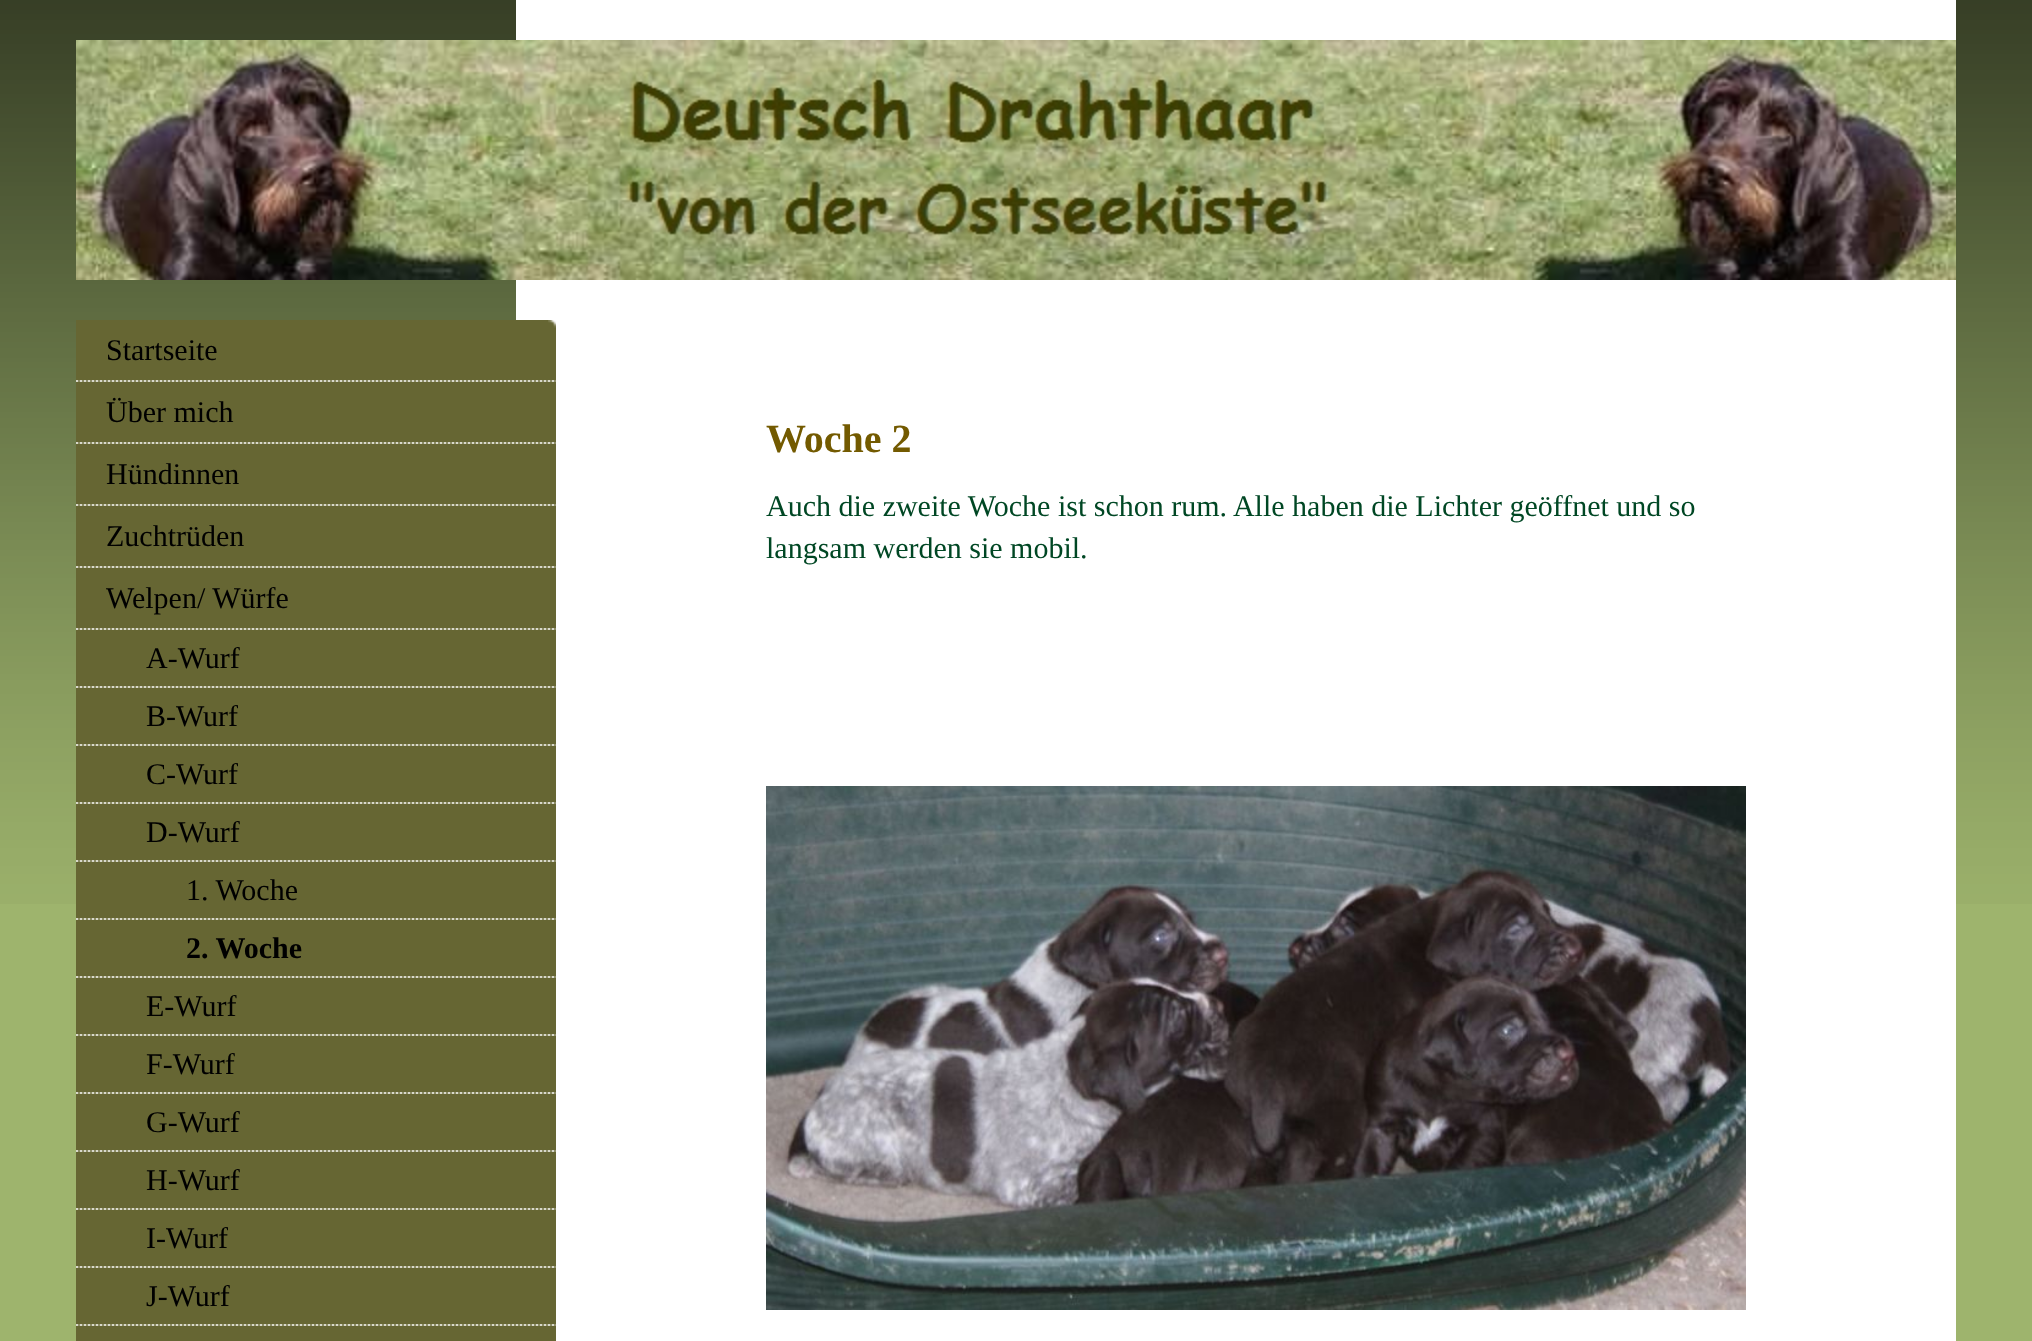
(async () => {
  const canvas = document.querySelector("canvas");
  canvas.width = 2032;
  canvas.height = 1341;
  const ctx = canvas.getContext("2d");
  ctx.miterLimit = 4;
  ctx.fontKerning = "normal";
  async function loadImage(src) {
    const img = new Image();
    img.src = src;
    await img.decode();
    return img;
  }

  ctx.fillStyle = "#9eb46d";
  ctx.fillRect(0, 0, 2032, 1341);
  ctx.drawImage(await loadImage("img/1.png"), 0, 0, 2032, 904);
  ctx.fillStyle = "#ffffff";
  ctx.fillRect(516, 0, 1440, 1341);
  ctx.drawImage(await loadImage("img/2.png"), 76, 40, 1880, 240);
  ctx.fillStyle = "#666633";
  ctx.fillRect(76, 320, 480, 1021);
  ctx.drawImage(await loadImage("img/3.png"), 548, 320, 8, 8);
  ctx.drawImage(await loadImage("img/4.png"), 76, 380, 480, 2);
  ctx.drawImage(await loadImage("img/4.png"), 76, 442, 480, 2);
  ctx.drawImage(await loadImage("img/4.png"), 76, 504, 480, 2);
  ctx.drawImage(await loadImage("img/4.png"), 76, 566, 480, 2);
  ctx.drawImage(await loadImage("img/4.png"), 76, 628, 480, 2);
  ctx.drawImage(await loadImage("img/4.png"), 76, 686, 480, 2);
  ctx.drawImage(await loadImage("img/4.png"), 76, 744, 480, 2);
  ctx.drawImage(await loadImage("img/4.png"), 76, 802, 480, 2);
  ctx.drawImage(await loadImage("img/4.png"), 76, 860, 480, 2);
  ctx.drawImage(await loadImage("img/4.png"), 76, 918, 480, 2);
  ctx.drawImage(await loadImage("img/4.png"), 76, 976, 480, 2);
  ctx.drawImage(await loadImage("img/4.png"), 76, 1034, 480, 2);
  ctx.drawImage(await loadImage("img/4.png"), 76, 1092, 480, 2);
  ctx.drawImage(await loadImage("img/4.png"), 76, 1150, 480, 2);
  ctx.drawImage(await loadImage("img/4.png"), 76, 1208, 480, 2);
  ctx.drawImage(await loadImage("img/4.png"), 76, 1266, 480, 2);
  ctx.drawImage(await loadImage("img/4.png"), 76, 1324, 480, 2);
  ctx.drawImage(await loadImage("img/5.png"), 766, 786, 980, 524);
  ctx.font = "30px Liberation Serif";
  ctx.fillStyle = "#000000";
  for (const [text, x, y] of [
    ["Startseite", 106, 360],
    ["Über mich", 106, 422],
    ["Hündinnen", 106, 484],
    ["Zuchtrüden", 106, 546],
    ["Welpen/ Würfe", 106, 608],
    ["A-Wurf", 146, 668],
    ["B-Wurf", 146, 726],
    ["C-Wurf", 146, 784],
    ["D-Wurf", 146, 842],
    ["1. Woche", 186, 900],
  ]) {
    ctx.fillText(text, x, y);
  }
  ctx.font = "bold 30px Liberation Serif";
  ctx.fillText("2. Woche", 186, 958);
  ctx.font = "30px Liberation Serif";
  for (const [text, x, y] of [
    ["E-Wurf", 146, 1016],
    ["F-Wurf", 146, 1074],
    ["G-Wurf", 146, 1132],
    ["H-Wurf", 146, 1190],
    ["I-Wurf", 146, 1248],
    ["J-Wurf", 146, 1306],
  ]) {
    ctx.fillText(text, x, y);
  }
  ctx.font = "bold 40px Liberation Serif";
  ctx.fillStyle = "#735a00";
  ctx.fillText("Woche 2", 766, 452);
  ctx.font = "30px Liberation Serif";
  ctx.fillStyle = "#004724";
  ctx.fillText("Auch die zweite Woche ist schon rum. Alle haben die Lichter geöffnet und so", 766, 516);
  ctx.fillText("langsam werden sie mobil.", 766, 558);
})();
